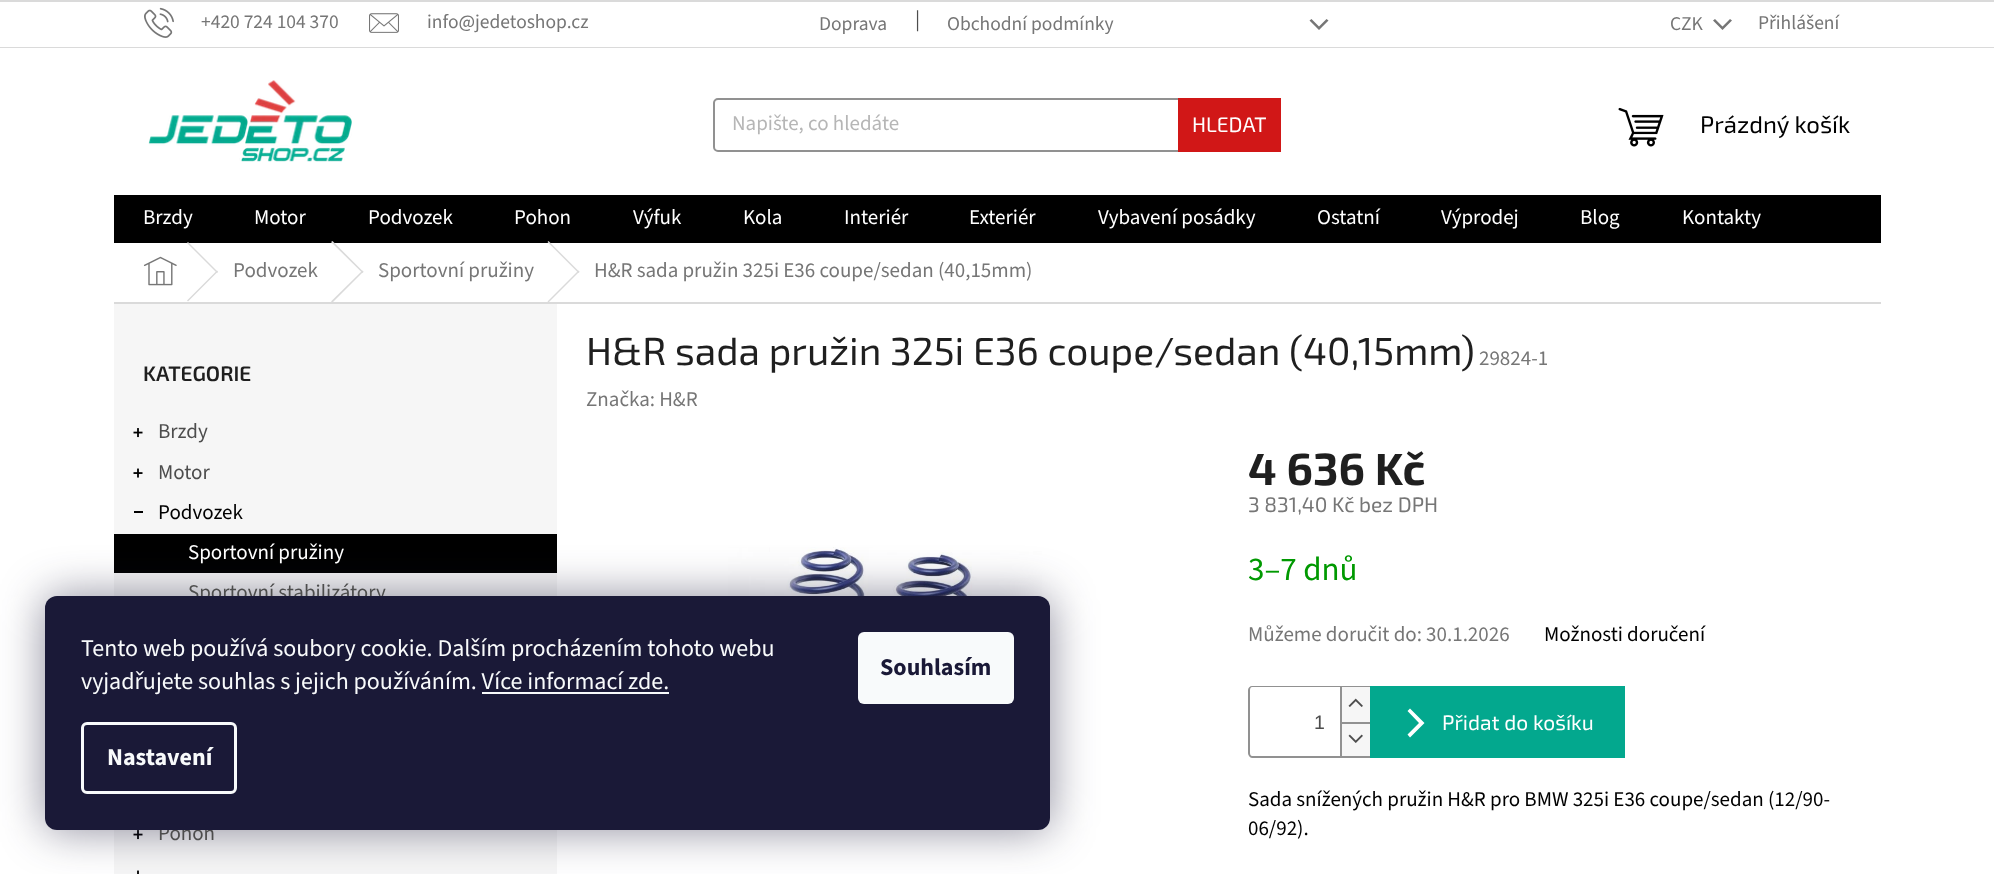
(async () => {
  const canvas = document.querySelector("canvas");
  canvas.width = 2016;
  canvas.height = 874;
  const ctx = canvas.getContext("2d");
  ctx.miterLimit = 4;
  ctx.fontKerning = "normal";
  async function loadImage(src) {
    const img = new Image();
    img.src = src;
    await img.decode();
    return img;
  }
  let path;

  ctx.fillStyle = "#ffffff";
  ctx.fillRect(0, 0, 2016, 874);
  ctx.fillStyle = "#dadada";
  ctx.fillRect(0, 0, 1994, 2);
  ctx.fillRect(0, 47, 1994, 1);
  ctx.drawImage(await loadImage("img/1.png"), 144, 7, 30, 31);
  ctx.drawImage(await loadImage("img/2.png"), 369, 13, 30, 20);
  ctx.fillStyle = "#767676";
  path = new Path2D("M1309.5 20.5L1311.5 19L1319 26.5L1326.5 19L1328.5 20.5L1319 30Z");
  ctx.fill(path);
  path = new Path2D("M1713 20.5L1715 19L1722.5 26.5L1730 19L1732 20.5L1722.5 30Z");
  ctx.fill(path);
  ctx.drawImage(await loadImage("img/3.png"), 148, 80, 204, 82);
  ctx.beginPath();
  ctx.roundRect(714, 99, 566, 52, 4);
  ctx.strokeStyle = "#919191";
  ctx.lineWidth = 2;
  ctx.stroke();
  ctx.fillStyle = "#d11717";
  ctx.fillRect(1178, 98, 103, 54);
  ctx.drawImage(await loadImage("img/4.png"), 1618, 107, 46, 40);
  ctx.fillStyle = "#000000";
  ctx.fillRect(114, 195, 1767, 48);
  ctx.fillStyle = "#dadada";
  ctx.fillRect(114, 302, 1767, 2);
  ctx.drawImage(await loadImage("img/5.png"), 143, 256, 34, 30);
  path = new Path2D("M187 243L188 242L218 272L217 273Z");
  ctx.fill(path);
  path = new Path2D("M217 270.5L218 271.5L188 301.5L187 300.5Z");
  ctx.fill(path);
  path = new Path2D("M331 242L332.5 241L363.5 272L362.5 273Z");
  ctx.fill(path);
  path = new Path2D("M362.5 270.5L363.5 271.5L332.5 302.5L331 301.5Z");
  ctx.fill(path);
  path = new Path2D("M547.5 242L548.5 241L579.5 272L578.5 273Z");
  ctx.fill(path);
  path = new Path2D("M578.5 270.5L579.5 271.5L548.5 302.5L547.5 301.5Z");
  ctx.fill(path);
  ctx.fillStyle = "#f6f6f6";
  ctx.fillRect(114, 304, 443, 570);
  ctx.drawImage(await loadImage("img/6.png"), 133, 428, 10, 10);
  ctx.drawImage(await loadImage("img/7.png"), 133, 468, 10, 10);
  ctx.fillStyle = "#000000";
  ctx.fillRect(134, 511, 9, 2);
  ctx.fillRect(114, 534, 443, 39);
  ctx.drawImage(await loadImage("img/6.png"), 133, 830, 10, 10);
  ctx.drawImage(await loadImage("img/8.png"), 137, 870, 2, 4);
  ctx.drawImage(await loadImage("img/9.png"), 728, 547, 314, 50);
  ctx.fillStyle = "#919191";
  path = new Path2D("M1252 686H1370V758H1252C1250 758 1248 755 1248 753V690C1248 688 1250 686 1252 686ZM1252 687H1370V756H1252C1251 756 1250 755 1250 753V690C1250 688 1251 687 1252 687Z");
  ctx.fill(path, "evenodd");
  ctx.fillStyle = "#f6f6f6";
  ctx.fillRect(1342, 687, 28, 35);
  ctx.fillStyle = "#919191";
  ctx.fillRect(1340, 687, 2, 35);
  ctx.drawImage(await loadImage("img/10.png"), 1348, 698, 15, 9);
  for (const [x, y, w, h, color] of [
    [1342, 724, 28, 32, "#f6f6f6"],
    [1340, 722, 30, 2, "#919191"],
    [1340, 722, 2, 34, "#919191"],
  ]) {
    ctx.fillStyle = color;
    ctx.fillRect(x, y, w, h);
  }
  ctx.drawImage(await loadImage("img/11.png"), 1348, 734, 15, 9);
  ctx.fillStyle = "#03a88e";
  ctx.fillRect(1370, 686, 255, 72);
  ctx.fillStyle = "#ffffff";
  path = new Path2D("M1410 737.5L1407.5 734.5L1419 723L1407.5 711L1410 708.5L1424.5 723Z");
  ctx.fill(path);
  ctx.fillStyle = "rgba(27, 25, 57, 0.5)";
  ctx.filter = "blur(22.5px)";
  ctx.beginPath();
  ctx.roundRect(45, 596, 1005, 234, 12);
  ctx.fill();
  ctx.filter = "none";
  ctx.font = "19.5px 'Source Sans 3'";
  ctx.fillStyle = "#767676";
  for (const [text, x, y] of [
    ["+420 724 104 370", 201, 28],
    ["info@jedetoshop.cz", 427, 28],
    ["Doprava", 819, 30],
  ]) {
    ctx.fillText(text, x, y);
  }
  ctx.font = "21px 'Source Sans 3'";
  ctx.fillStyle = "#4d4d4d";
  ctx.fillText("|", 915, 26);
  ctx.font = "19.5px 'Source Sans 3'";
  ctx.fillStyle = "#767676";
  for (const [text, x, y] of [
    ["Obchodní podmínky", 947, 30],
    ["CZK", 1670, 30],
    ["Přihlášení", 1758, 29],
  ]) {
    ctx.fillText(text, x, y);
  }
  ctx.font = "21px 'Source Sans 3'";
  ctx.fillStyle = "#b6b6b6";
  ctx.fillText("Napište, co hledáte", 732, 130);
  ctx.font = "21px 'Exo 2'";
  ctx.fillStyle = "#ffffff";
  ctx.fillText("HLEDAT", 1192, 132);
  ctx.font = "24px 'Exo 2'";
  ctx.fillStyle = "#000000";
  ctx.fillText("Prázdný košík", 1700, 133);
  ctx.font = "21px 'Source Sans 3'";
  ctx.fillStyle = "#ffffff";
  for (const [text, x, y] of [
    ["Brzdy", 143, 224],
    ["Motor", 254, 224],
    ["Podvozek", 368, 224],
    ["Pohon", 514, 224],
    ["Výfuk", 633, 224],
    ["Kola", 743, 224],
    ["Interiér", 844, 224],
    ["Exteriér", 969, 224],
    ["Vybavení posádky", 1098, 224],
    ["Ostatní", 1317, 224],
    ["Výprodej", 1441, 224],
    ["Blog", 1580, 224],
    ["Kontakty", 1682, 224],
  ]) {
    ctx.fillText(text, x, y);
  }
  ctx.fillStyle = "#767676";
  for (const [text, x, y] of [
    ["Podvozek", 233, 277],
    ["Sportovní pružiny", 378, 277],
    ["H&R sada pružin 325i E36 coupe/sedan (40,15mm)", 594, 277],
  ]) {
    ctx.fillText(text, x, y);
  }
  ctx.font = "600 21px 'Exo 2'";
  ctx.fillStyle = "#1f1f1f";
  ctx.fillText("KATEGORIE", 143, 381);
  ctx.font = "21px 'Source Sans 3'";
  ctx.fillStyle = "#4d4d4d";
  ctx.fillText("Brzdy", 158, 438);
  ctx.fillText("Motor", 158, 479);
  ctx.fillStyle = "#000000";
  ctx.fillText("Podvozek", 158, 519);
  ctx.fillStyle = "#ffffff";
  ctx.fillText("Sportovní pružiny", 188, 559);
  ctx.fillStyle = "#4d4d4d";
  ctx.fillText("Sportovní stabilizátory", 188, 599);
  ctx.fillText("Pohon", 158, 840);
  ctx.font = "39px 'Exo 2'";
  ctx.fillStyle = "#1f1f1f";
  ctx.fillText("H&R sada pružin 325i E36 coupe/sedan (40,15mm)", 586, 365);
  ctx.font = "21px 'Source Sans 3'";
  ctx.fillStyle = "#767676";
  ctx.fillText("29824-1", 1479, 365);
  ctx.fillText("Značka: H&R", 586, 406);
  ctx.font = "bold 45px 'Exo 2'";
  ctx.fillStyle = "#1f1f1f";
  ctx.fillText("4 636 Kč", 1248, 485);
  ctx.font = "21px 'Exo 2'";
  ctx.fillStyle = "#767676";
  ctx.fillText("3 831,40 Kč bez DPH", 1248, 512);
  ctx.font = "33px 'Source Sans 3'";
  ctx.fillStyle = "#009901";
  ctx.fillText("3–7 dnů", 1248, 580);
  ctx.font = "21px 'Source Sans 3'";
  ctx.fillStyle = "#767676";
  ctx.fillText("Můžeme doručit do: 30.1.2026", 1248, 641);
  ctx.fillStyle = "#000000";
  ctx.fillText("Možnosti doručení", 1544, 641);
  ctx.font = "19.5px Liberation Sans";
  ctx.fillStyle = "#4d4d4d";
  ctx.fillText("1", 1314, 729);
  ctx.font = "21px 'Exo 2'";
  ctx.fillStyle = "#ffffff";
  ctx.fillText("Přidat do košíku", 1442, 730);
  ctx.font = "21px 'Source Sans 3'";
  ctx.fillStyle = "#000000";
  ctx.fillText("Sada snížených pružin H&R pro BMW 325i E36 coupe/sedan (12/90-", 1248, 806);
  ctx.fillText("06/92).", 1248, 835);
  ctx.fillStyle = "#1a1937";
  ctx.beginPath();
  ctx.roundRect(45, 596, 1005, 234, 12);
  ctx.fill();
  ctx.font = "24px 'Source Sans 3'";
  ctx.fillStyle = "#f8fafb";
  ctx.fillText("Tento web používá soubory cookie. Dalším procházením tohoto webu", 81, 656);
  ctx.fillText("vyjadřujete souhlas s jejich používáním. Více informací zde.", 81, 689);
  ctx.fillRect(482, 692, 187, 2);
  ctx.beginPath();
  ctx.roundRect(82.5, 723.5, 153, 69, 4.5);
  ctx.strokeStyle = "#f8fafb";
  ctx.lineWidth = 3;
  ctx.stroke();
  ctx.font = "bold 24px 'Source Sans 3'";
  ctx.fillText("Nastavení", 107, 765);
  ctx.beginPath();
  ctx.roundRect(858, 632, 156, 72, 6);
  ctx.fill();
  ctx.fillStyle = "#1a1937";
  ctx.fillText("Souhlasím", 880, 675);
})();
